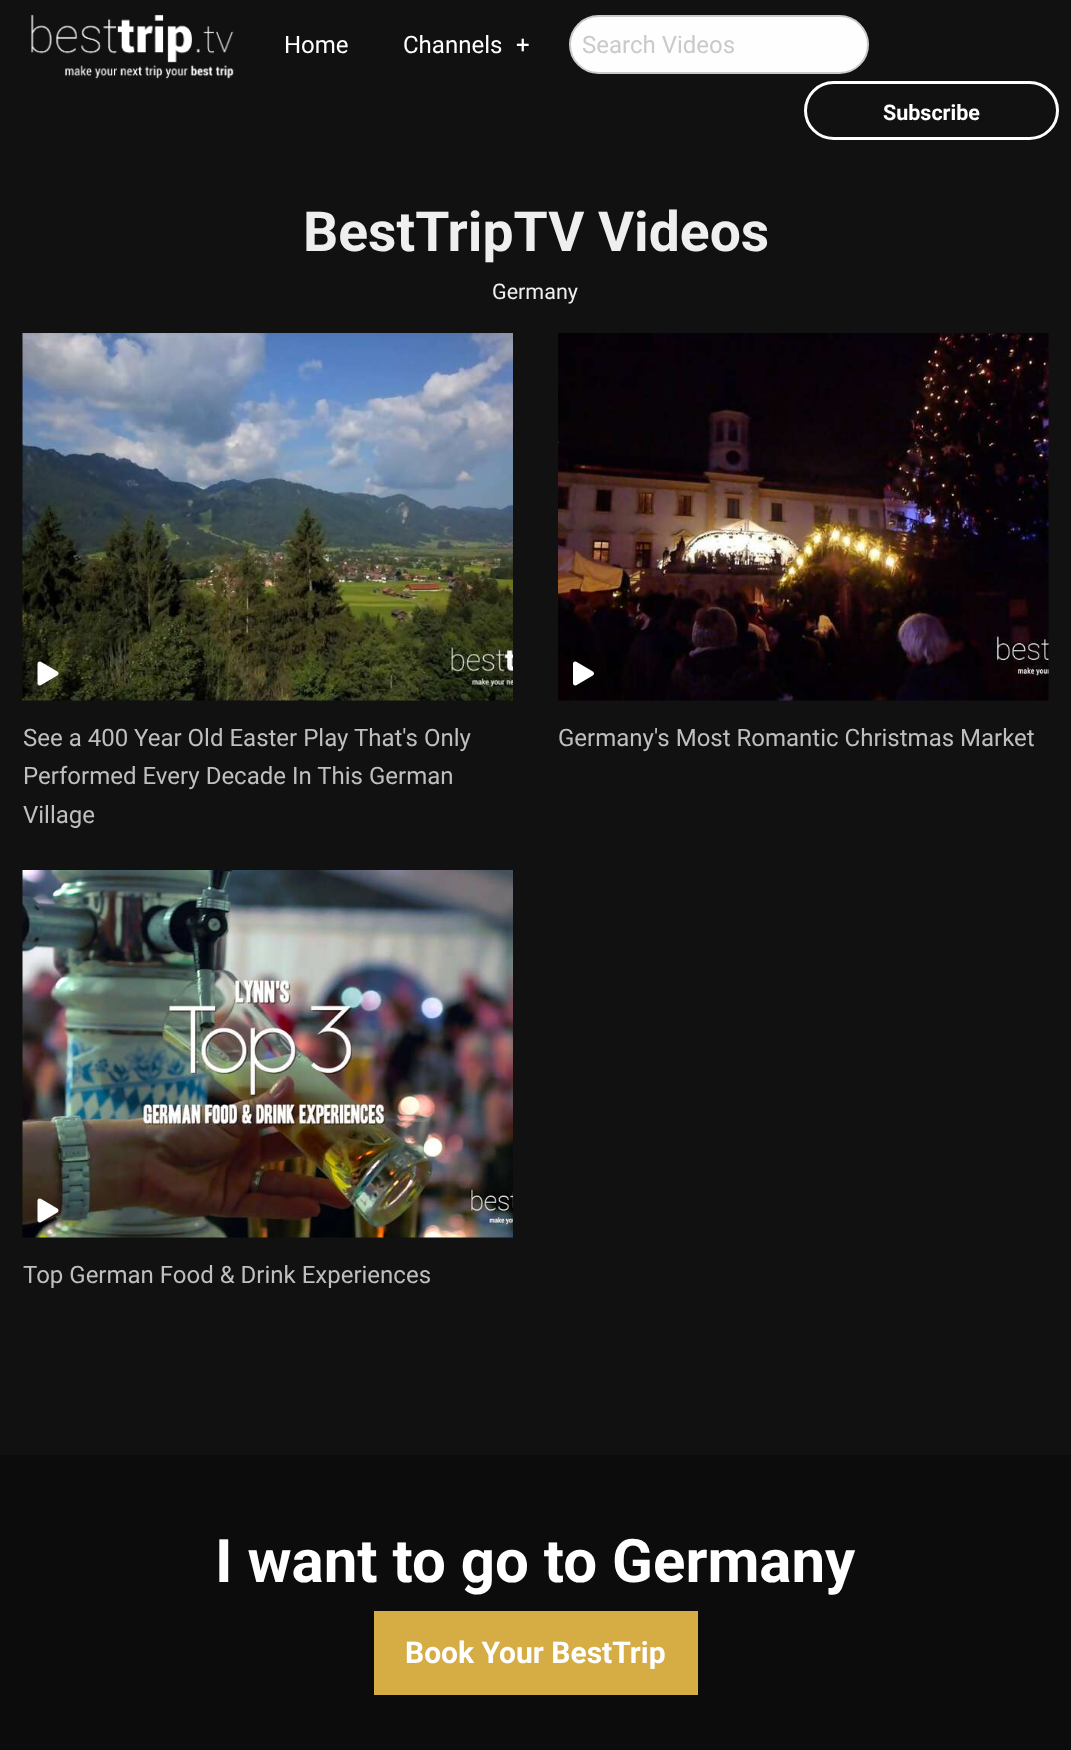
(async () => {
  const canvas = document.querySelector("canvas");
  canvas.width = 1071;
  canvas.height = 1750;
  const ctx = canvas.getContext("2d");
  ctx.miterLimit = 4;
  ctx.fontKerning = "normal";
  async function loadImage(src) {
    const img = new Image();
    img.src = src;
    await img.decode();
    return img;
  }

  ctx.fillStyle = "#111111";
  ctx.fillRect(0, 0, 1071, 1750);
  ctx.drawImage(await loadImage("img/1.png"), 31, 14, 203, 65);
  ctx.fillStyle = "#fefefe";
  ctx.beginPath();
  ctx.roundRect(570, 16, 298, 57, 28.5);
  ctx.fill();
  ctx.strokeStyle = "#cacaca";
  ctx.lineWidth = 2;
  ctx.stroke();
  ctx.beginPath();
  ctx.roundRect(805.5, 82.5, 252, 56, 28);
  ctx.strokeStyle = "#ffffff";
  ctx.lineWidth = 3;
  ctx.stroke();
  ctx.drawImage(await loadImage("img/2.png"), 22, 333, 491, 368);
  ctx.drawImage(await loadImage("img/3.png"), 37, 661, 22, 25);
  ctx.drawImage(await loadImage("img/4.png"), 558, 333, 491, 368);
  ctx.drawImage(await loadImage("img/5.png"), 573, 661, 21, 25);
  ctx.drawImage(await loadImage("img/6.png"), 22, 870, 491, 368);
  ctx.drawImage(await loadImage("img/7.png"), 37, 1198, 22, 25);
  ctx.fillStyle = "#0c0c0c";
  ctx.fillRect(0, 1455, 1071, 295);
  ctx.fillStyle = "#d6ad45";
  ctx.fillRect(374, 1611, 324, 84);
  ctx.font = "24px Roboto";
  ctx.fillStyle = "#ffffff";
  for (const [text, x, y] of [
    ["Home", 284, 53],
    ["Channels", 403, 53],
    ["+", 516, 53],
  ]) {
    ctx.fillText(text, x, y);
  }
  ctx.fillStyle = "#cacaca";
  ctx.fillText("Search Videos", 582, 53);
  ctx.font = "bold 21.5px Roboto";
  ctx.fillStyle = "#ffffff";
  ctx.fillText("Subscribe", 883, 120);
  ctx.font = "bold 55.25px Roboto";
  ctx.fillStyle = "#efefef";
  ctx.fillText("BestTripTV Videos", 303, 251);
  ctx.font = "21.5px Roboto";
  ctx.fillText("Germany", 492, 299);
  ctx.font = "24px Roboto";
  ctx.fillStyle = "#bfbfbf";
  for (const [text, x, y] of [
    ["See a 400 Year Old Easter Play That's Only", 23, 746],
    ["Performed Every Decade In This German", 23, 784],
    ["Village", 23, 823],
    ["Germany's Most Romantic Christmas Market", 558, 746],
    ["Top German Food & Drink Experiences", 23, 1283],
  ]) {
    ctx.fillText(text, x, y);
  }
  ctx.font = "bold 60px Roboto";
  ctx.fillStyle = "#ffffff";
  ctx.fillText("I want to go to Germany", 215, 1582);
  ctx.font = "bold 30px Roboto";
  ctx.fillText("Book Your BestTrip", 405, 1663);
})();
